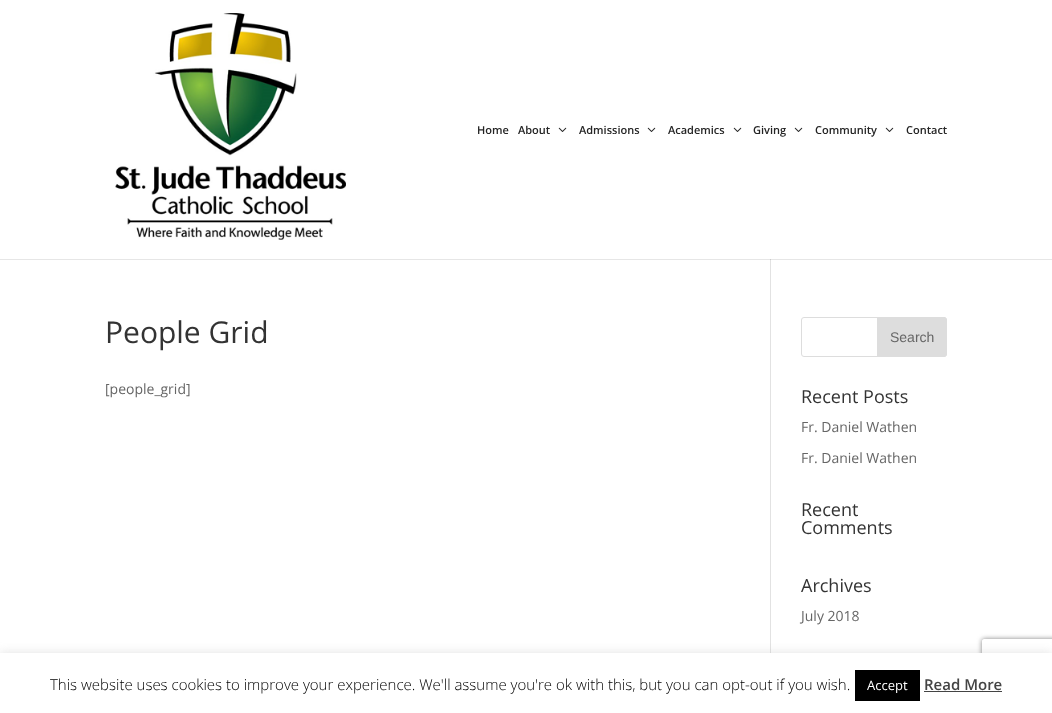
(async () => {
  const canvas = document.querySelector("canvas");
  canvas.width = 1052;
  canvas.height = 713;
  const ctx = canvas.getContext("2d");
  ctx.miterLimit = 4;
  ctx.fontKerning = "normal";
  async function loadImage(src) {
    const img = new Image();
    img.src = src;
    await img.decode();
    return img;
  }
  let path;

  ctx.fillStyle = "#ffffff";
  ctx.fillRect(0, 0, 1052, 713);
  ctx.fillStyle = "#e6e6e6";
  ctx.fillRect(0, 259, 1052, 1);
  ctx.drawImage(await loadImage("img/1.png"), 115, 13, 231, 227);
  ctx.drawImage(await loadImage("img/2.png"), 558, 127, 9, 5);
  ctx.drawImage(await loadImage("img/2.png"), 647, 127, 9, 5);
  ctx.drawImage(await loadImage("img/2.png"), 733, 127, 9, 5);
  ctx.drawImage(await loadImage("img/2.png"), 794, 127, 9, 5);
  ctx.drawImage(await loadImage("img/2.png"), 885, 127, 9, 5);
  ctx.fillStyle = "#e2e2e2";
  ctx.fillRect(770, 259, 1, 394);
  ctx.fillStyle = "#cbcbcb";
  ctx.fillRect(770, 259, 1, 1);
  ctx.beginPath();
  ctx.roundRect(801.5, 317.5, 145, 39, 2.5);
  ctx.strokeStyle = "#dddddd";
  ctx.stroke();
  ctx.fillStyle = "#dddddd";
  ctx.beginPath();
  ctx.roundRect(877.5, 317.5, 69, 39, [0, 2.5, 2.5, 0]);
  ctx.fill();
  ctx.stroke();
  ctx.fillStyle = "rgba(172, 171, 171, 0.3)";
  ctx.filter = "blur(5px)";
  ctx.beginPath();
  ctx.rect(0, 652, 1052, 60);
  ctx.fill();
  ctx.filter = "none";
  ctx.save();
  path = new Path2D("M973 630H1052V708H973ZM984 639H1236C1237 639 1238 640 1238 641V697C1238 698 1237 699 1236 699H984C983 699 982 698 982 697V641C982 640 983 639 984 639Z");
  ctx.clip(path, "evenodd");
  ctx.fillStyle = "#808080";
  ctx.filter = "blur(2.5px)";
  ctx.beginPath();
  ctx.roundRect(982, 639, 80, 60, 2);
  ctx.fill();
  ctx.filter = "none";
  ctx.restore();
  for (const [x, y, w, h, color] of [
    [0, 653, 1052, 60, "#ffffff"],
    [855, 670, 65, 31, "#000000"],
    [924, 691, 78, 1, "#444444"],
  ]) {
    ctx.fillStyle = color;
    ctx.fillRect(x, y, w, h);
  }
  ctx.font = "600 11px Open Sans";
  ctx.fillStyle = "#242424";
  for (const [text, x, y] of [
    ["Home", 477, 134],
    ["About", 518, 134],
    ["Admissions", 579, 134],
    ["Academics", 668, 134],
    ["Giving", 753, 134],
    ["Community", 815, 134],
    ["Contact", 906, 134],
  ]) {
    ctx.fillText(text, x, y);
  }
  ctx.font = "30px Open Sans";
  ctx.fillStyle = "#333333";
  ctx.fillText("People Grid", 105, 343);
  ctx.font = "14px Open Sans";
  ctx.fillStyle = "#666666";
  ctx.fillText("[people_grid]", 105, 394);
  ctx.font = "14px Liberation Sans";
  ctx.fillText("Search", 890, 342);
  ctx.font = "18px Open Sans";
  ctx.fillStyle = "#333333";
  ctx.fillText("Recent Posts", 801, 403);
  ctx.font = "14px Open Sans";
  ctx.fillStyle = "#666666";
  ctx.fillText("Fr. Daniel Wathen", 801, 432);
  ctx.fillText("Fr. Daniel Wathen", 801, 463);
  ctx.font = "18px Open Sans";
  ctx.fillStyle = "#333333";
  for (const [text, x, y] of [
    ["Recent", 801, 516],
    ["Comments", 801, 534],
    ["Archives", 801, 592],
  ]) {
    ctx.fillText(text, x, y);
  }
  ctx.font = "14px Open Sans";
  ctx.fillStyle = "#666666";
  ctx.fillText("July 2018", 801, 621);
  ctx.font = "300 15px Open Sans";
  ctx.fillStyle = "#000000";
  ctx.fillText("This website uses cookies to improve your experience. We'll assume you're ok with this, but you can opt-out if you wish.", 50, 690);
  ctx.font = "13px Open Sans";
  ctx.fillStyle = "#ffffff";
  ctx.fillText("Accept", 867, 690);
  ctx.font = "600 15px Open Sans";
  ctx.fillStyle = "#444444";
  ctx.fillText("Read More", 924, 690);
})();
